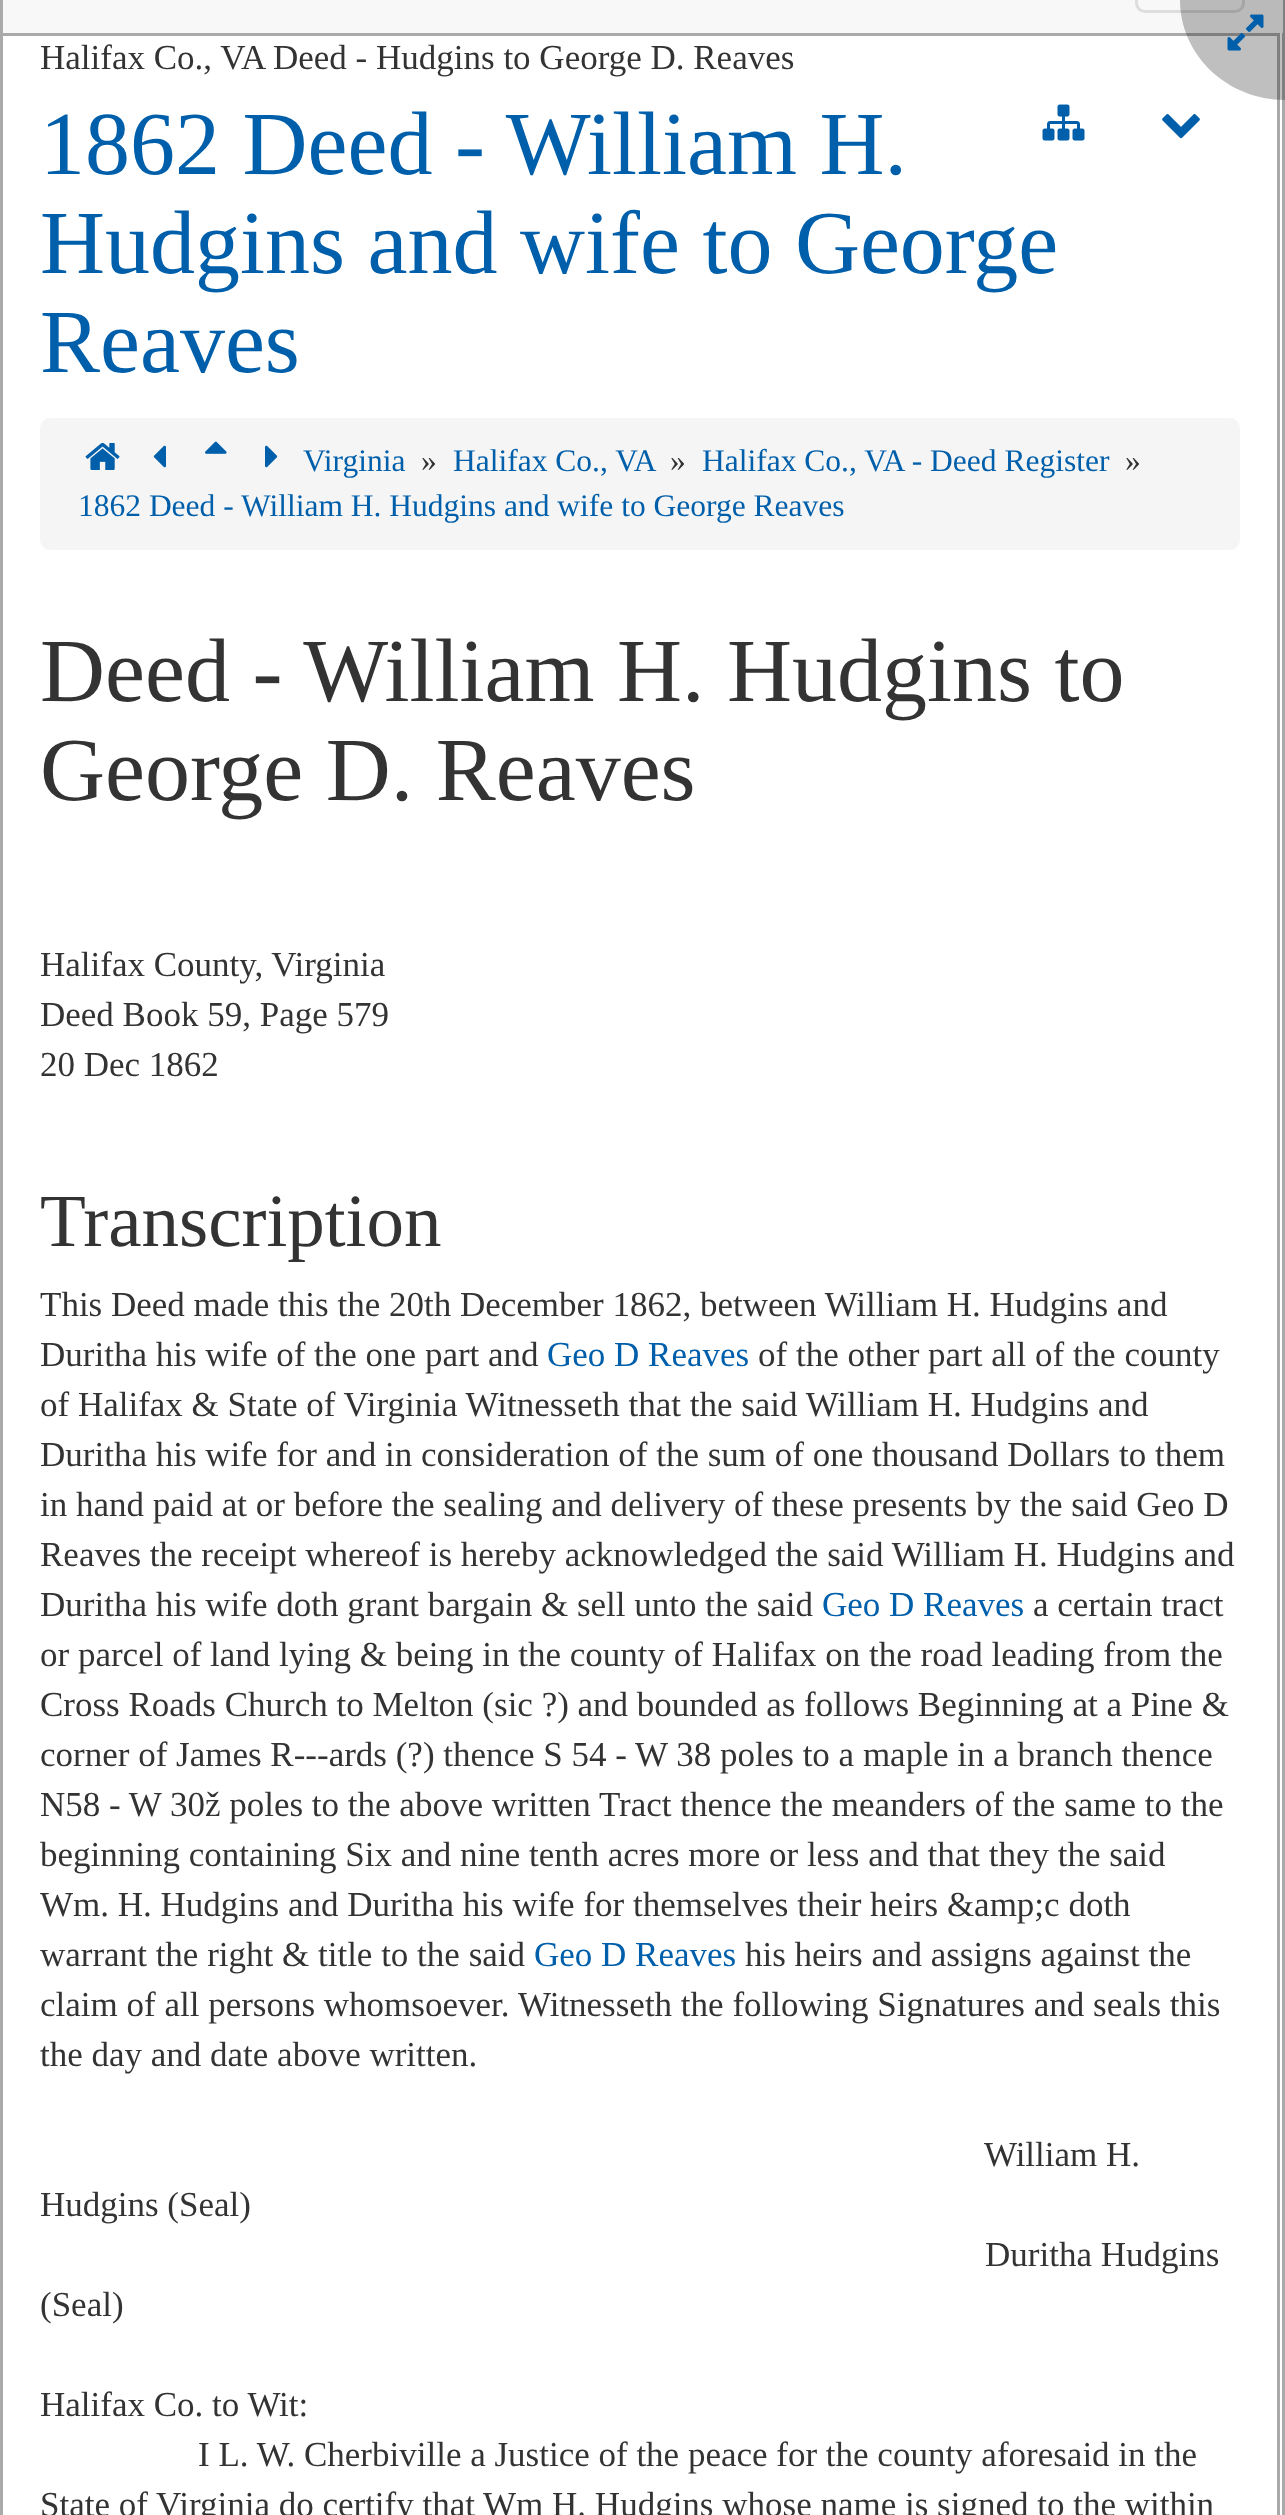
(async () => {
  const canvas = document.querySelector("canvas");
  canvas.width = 1285;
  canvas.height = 2515;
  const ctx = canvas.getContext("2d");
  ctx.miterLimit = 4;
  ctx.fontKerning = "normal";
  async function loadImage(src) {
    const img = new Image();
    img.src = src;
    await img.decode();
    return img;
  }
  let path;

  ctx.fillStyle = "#ffffff";
  ctx.fillRect(0, 0, 1285, 2515);
  ctx.strokeStyle = "#aaaaaa";
  ctx.lineWidth = 3;
  ctx.strokeRect(1.5, -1.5, 1282, 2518);
  ctx.fillStyle = "#f8f8f8";
  ctx.fillRect(3, 0, 1280, 33);
  ctx.beginPath();
  ctx.roundRect(1136.5, -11.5, 107, 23, 8.5);
  ctx.strokeStyle = "#dddddd";
  ctx.stroke();
  ctx.strokeStyle = "#aaaaaa";
  ctx.strokeRect(1.5, 34.5, 1277, 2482);
  ctx.fillStyle = "rgba(0, 0, 0, 0.25)";
  path = new Path2D("M1180 0H1285V100C1227 100 1180 55 1180 0Z");
  ctx.fill(path);
  ctx.drawImage(await loadImage("img/1.png"), 1227, 14, 37, 37);
  ctx.drawImage(await loadImage("img/2.png"), 1042, 104, 43, 37);
  ctx.drawImage(await loadImage("img/3.png"), 1162, 114, 38, 25);
  ctx.fillStyle = "#f5f5f5";
  ctx.beginPath();
  ctx.roundRect(40, 418, 1200, 132, 10);
  ctx.fill();
  ctx.drawImage(await loadImage("img/4.png"), 85, 442, 35, 28);
  ctx.drawImage(await loadImage("img/5.png"), 153, 445, 13, 23);
  ctx.drawImage(await loadImage("img/6.png"), 205, 441, 22, 13);
  ctx.drawImage(await loadImage("img/7.png"), 265, 445, 13, 23);
  ctx.font = "35px Liberation Serif";
  ctx.fillStyle = "#333333";
  ctx.fillText("Halifax Co., VA Deed - Hudgins to George D. Reaves", 40, 69);
  ctx.font = "90px Liberation Serif";
  ctx.fillStyle = "#005faa";
  for (const [text, x, y] of [
    ["1862 Deed - William H.", 40, 174],
    ["Hudgins and wife to George", 40, 273],
    ["Reaves", 40, 372],
  ]) {
    ctx.fillText(text, x, y);
  }
  ctx.font = "31.5px Liberation Serif";
  ctx.fillText("Virginia", 303, 471);
  ctx.fillStyle = "#333333";
  ctx.fillText("»", 421, 471);
  ctx.fillStyle = "#005faa";
  ctx.fillText("Halifax Co., VA", 453, 471);
  ctx.fillStyle = "#333333";
  ctx.fillText("»", 670, 471);
  ctx.fillStyle = "#005faa";
  ctx.fillText("Halifax Co., VA - Deed Register", 702, 471);
  ctx.fillStyle = "#333333";
  ctx.fillText("»", 1125, 471);
  ctx.fillStyle = "#005faa";
  ctx.fillText("1862 Deed - William H. Hudgins and wife to George Reaves", 78, 516);
  ctx.font = "90px Liberation Serif";
  ctx.fillStyle = "#333333";
  ctx.fillText("Deed - William H. Hudgins to", 40, 701);
  ctx.fillText("George D. Reaves", 40, 800);
  ctx.font = "35px Liberation Serif";
  for (const [text, x, y] of [
    ["Halifax County, Virginia", 40, 976],
    ["Deed Book 59, Page 579", 40, 1026],
    ["20 Dec 1862", 40, 1076],
  ]) {
    ctx.fillText(text, x, y);
  }
  ctx.font = "75px Liberation Serif";
  ctx.fillText("Transcription", 40, 1246);
  ctx.font = "35px Liberation Serif";
  ctx.fillText("This Deed made this the 20th December 1862, between William H. Hudgins and", 40, 1316);
  ctx.fillText("Duritha his wife of the one part and", 40, 1366);
  ctx.fillStyle = "#005faa";
  ctx.fillText("Geo D Reaves", 547, 1366);
  ctx.fillStyle = "#333333";
  for (const [text, x, y] of [
    ["of the other part all of the county", 758, 1366],
    ["of Halifax & State of Virginia Witnesseth that the said William H. Hudgins and", 40, 1416],
    ["Duritha his wife for and in consideration of the sum of one thousand Dollars to them", 40, 1466],
    ["in hand paid at or before the sealing and delivery of these presents by the said Geo D", 40, 1516],
    ["Reaves the receipt whereof is hereby acknowledged the said William H. Hudgins and", 40, 1566],
    ["Duritha his wife doth grant bargain & sell unto the said", 40, 1616],
  ]) {
    ctx.fillText(text, x, y);
  }
  ctx.fillStyle = "#005faa";
  ctx.fillText("Geo D Reaves", 822, 1616);
  ctx.fillStyle = "#333333";
  for (const [text, x, y] of [
    ["a certain tract", 1033, 1616],
    ["or parcel of land lying & being in the county of Halifax on the road leading from the", 40, 1666],
    ["Cross Roads Church to Melton (sic ?) and bounded as follows Beginning at a Pine &", 40, 1716],
    ["corner of James R---ards (?) thence S 54 - W 38 poles to a maple in a branch thence", 40, 1766],
    ["N58 - W 30ž poles to the above written Tract thence the meanders of the same to the", 40, 1816],
    ["beginning containing Six and nine tenth acres more or less and that they the said", 40, 1866],
    ["Wm. H. Hudgins and Duritha his wife for themselves their heirs &amp;c doth", 40, 1916],
    ["warrant the right & title to the said", 40, 1966],
  ]) {
    ctx.fillText(text, x, y);
  }
  ctx.fillStyle = "#005faa";
  ctx.fillText("Geo D Reaves", 534, 1966);
  ctx.fillStyle = "#333333";
  for (const [text, x, y] of [
    ["his heirs and assigns against the", 745, 1966],
    ["claim of all persons whomsoever.", 40, 2016],
    ["Witnesseth the following Signatures and seals this", 518, 2016],
    ["the day and date above written.", 40, 2066],
    ["William H.", 984, 2166],
    ["Hudgins (Seal)", 40, 2216],
    ["Duritha Hudgins", 985, 2266],
    ["(Seal)", 40, 2316],
    ["Halifax Co. to Wit:", 40, 2416],
    ["I L. W. Cherbiville a Justice of the peace for the county aforesaid in the", 198, 2466],
    ["State of Virginia do certify that Wm H. Hudgins whose name is signed to the within", 40, 2516],
  ]) {
    ctx.fillText(text, x, y);
  }
})();
